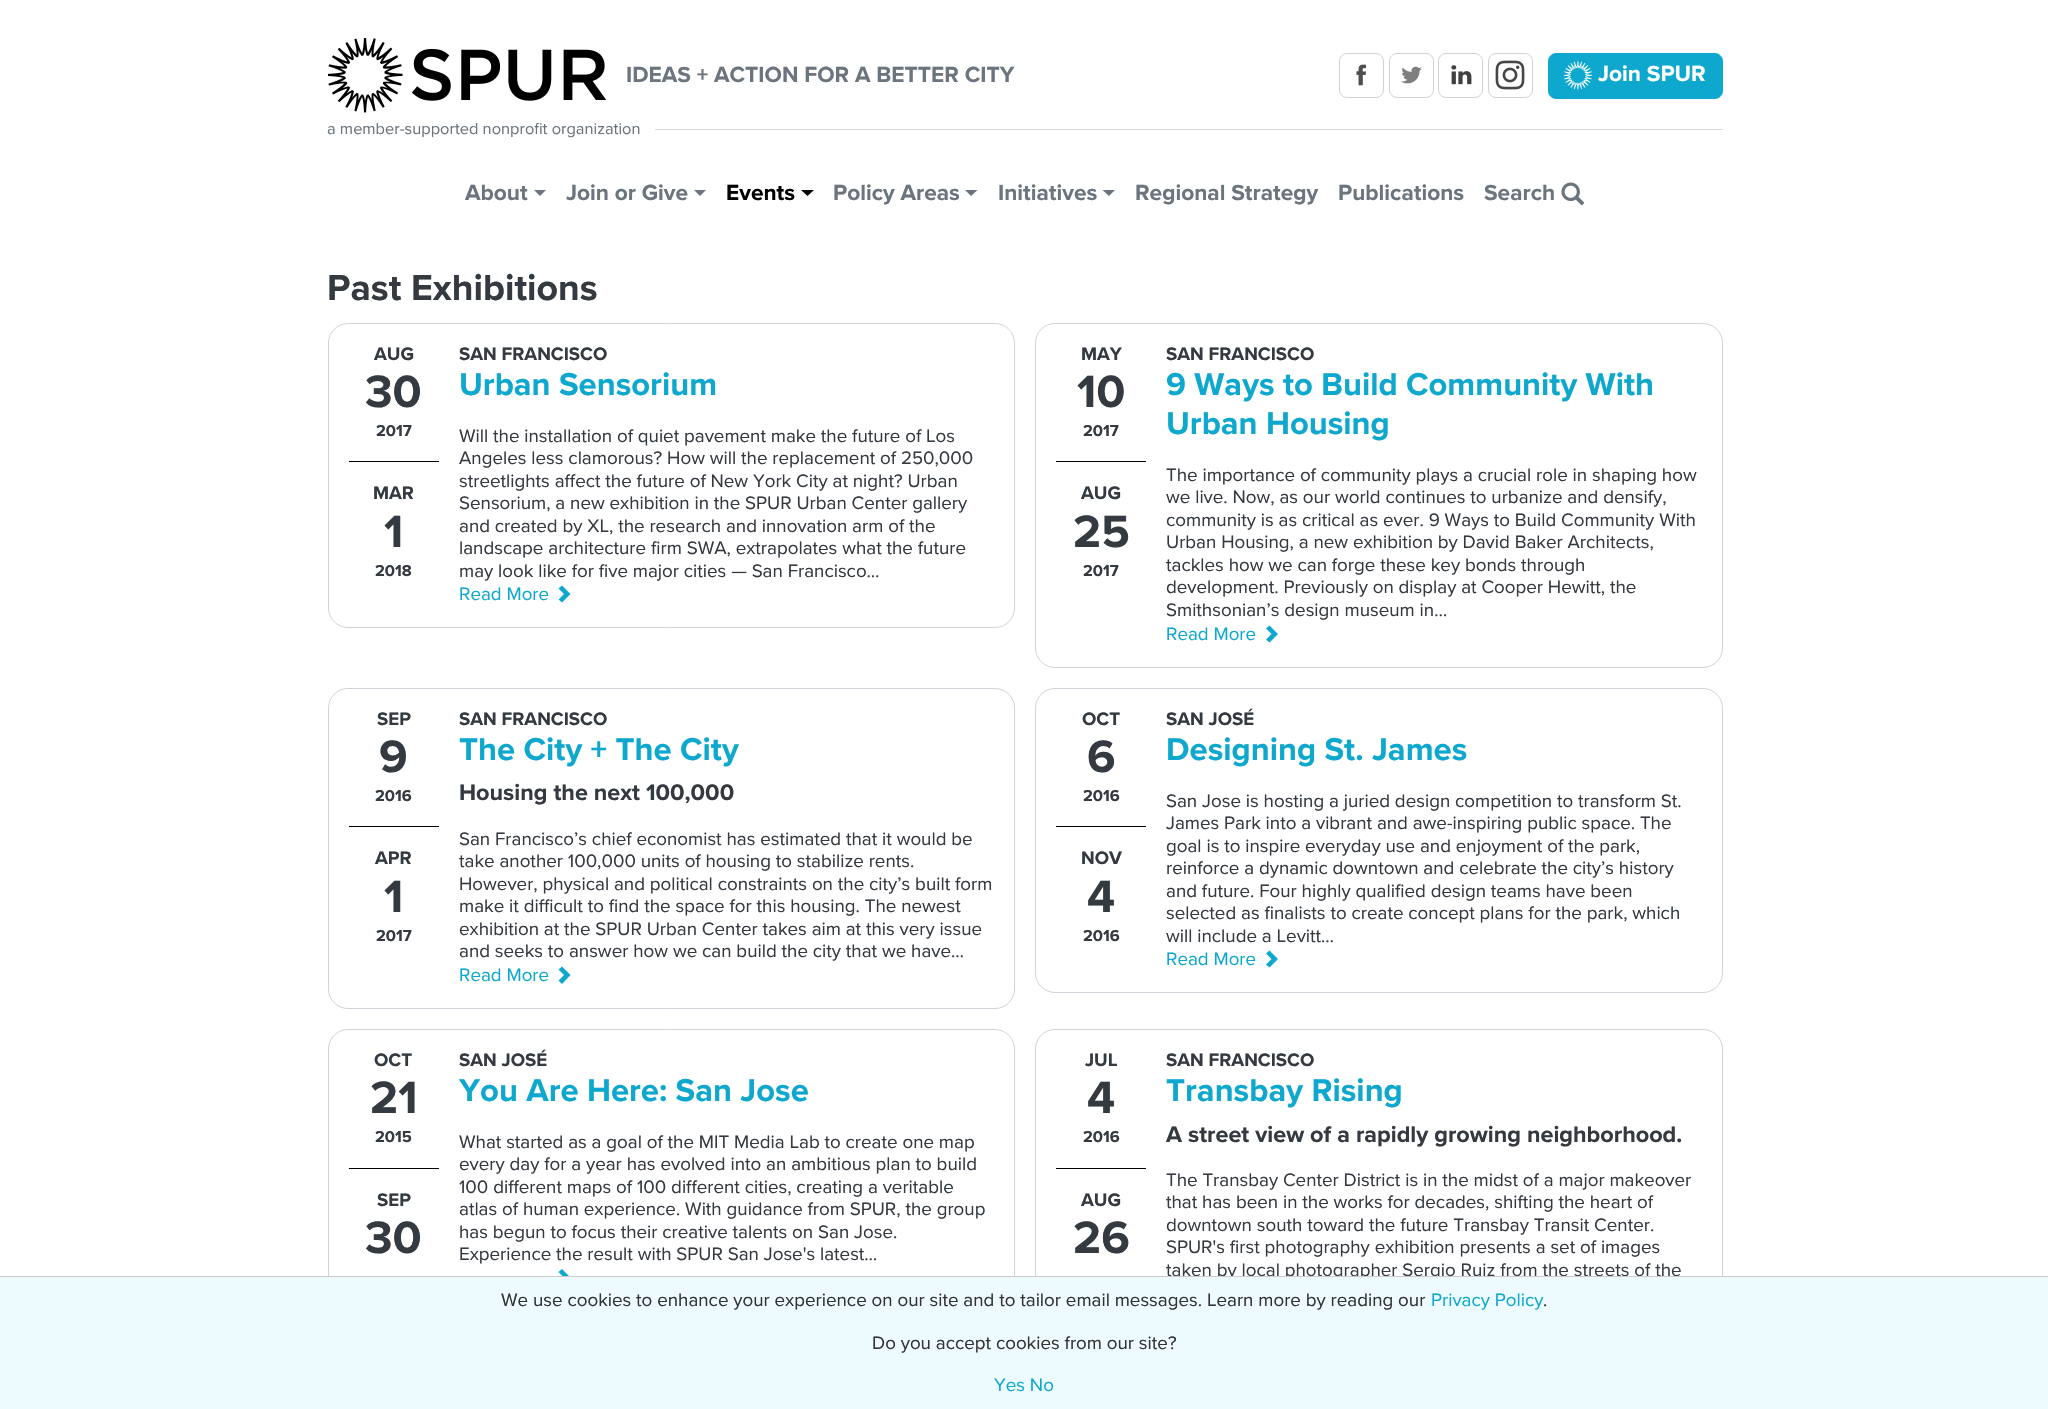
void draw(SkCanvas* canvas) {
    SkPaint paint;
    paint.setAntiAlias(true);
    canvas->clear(0xFFFFFFFF);
    canvas->drawImageRect(SkImages::DeferredFromEncodedData(SkData::MakeFromFileName("img1.png")), SkRect::MakeXYWH(328, 38, 278, 75), SkSamplingOptions());
    SkFont font1(fontMgr->matchFamilyStyle("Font", SkFontStyle::Bold()), 22.7f);
    font1.setSubpixel(true);
    paint.setColor(0xFF6C757D);
    canvas->drawString("IDEAS + ACTION FOR A BETTER CITY", 626, 82, font1, paint);
    paint.setStyle(SkPaint::kStroke_Style);
    paint.setStrokeWidth(1);
    paint.setColor(0xFFCED4DA);
    canvas->drawRoundRect(SkRect::MakeXYWH(1339.5f, 53.5f, 44, 44), 7.5f, 7.5f, paint);
    canvas->drawImageRect(SkImages::DeferredFromEncodedData(SkData::MakeFromFileName("img2.png")), SkRect::MakeXYWH(1356, 64, 10, 22), SkSamplingOptions());
    canvas->drawRoundRect(SkRect::MakeXYWH(1389.5f, 53.5f, 44, 44), 7.5f, 7.5f, paint);
    canvas->drawImageRect(SkImages::DeferredFromEncodedData(SkData::MakeFromFileName("img3.png")), SkRect::MakeXYWH(1401, 66, 21, 18), SkSamplingOptions());
    canvas->drawRoundRect(SkRect::MakeXYWH(1438.5f, 53.5f, 44, 44), 7.5f, 7.5f, paint);
    canvas->drawImageRect(SkImages::DeferredFromEncodedData(SkData::MakeFromFileName("img4.png")), SkRect::MakeXYWH(1451, 65, 21, 20), SkSamplingOptions());
    canvas->drawRoundRect(SkRect::MakeXYWH(1488.5f, 53.5f, 44, 44), 7.5f, 7.5f, paint);
    canvas->drawImageRect(SkImages::DeferredFromEncodedData(SkData::MakeFromFileName("img5.png")), SkRect::MakeXYWH(1495, 60, 30, 30), SkSamplingOptions());
    paint.setStyle(SkPaint::kFill_Style);
    paint.setColor(0xFF0EA8CE);
    canvas->drawRoundRect(SkRect::MakeXYWH(1548.5f, 53.5f, 174, 45), 7.5f, 7.5f, paint);
    paint.setStyle(SkPaint::kStroke_Style);
    canvas->drawRoundRect(SkRect::MakeXYWH(1548.5f, 53.5f, 174, 45), 7.5f, 7.5f, paint);
    canvas->drawImageRect(SkImages::DeferredFromEncodedData(SkData::MakeFromFileName("img6.png")), SkRect::MakeXYWH(1564, 61, 29, 29), SkSamplingOptions());
    paint.setStyle(SkPaint::kFill_Style);
    paint.setColor(0xFFFFFFFF);
    canvas->drawString("Join SPUR", 1598, 81, font1, paint);
    SkFont font2(fontMgr->matchFamilyStyle("Font", SkFontStyle::Normal()), 16.4f);
    font2.setSubpixel(true);
    paint.setColor(0xFF6C757D);
    canvas->drawString("a member-supported nonprofit organization", 327, 134, font2, paint);
    paint.setColor(0xFFDADDDF);
    canvas->drawRect(SkRect::MakeXYWH(655, 129, 1068, 1), paint);
    paint.setColor(0xFF6C757D);
    canvas->drawString("About", 465, 200, font1, paint);
    canvas->drawPath(SkPathBuilder().moveTo(534, 190).lineTo(546, 190).lineTo(540, 196).close().detach(), paint);
    canvas->drawString("Join or Give", 566, 200, font1, paint);
    canvas->drawPath(SkPathBuilder().moveTo(694, 190).lineTo(706, 190).lineTo(700, 196).close().detach(), paint);
    paint.setColor(0xFF000000);
    canvas->drawString("Events", 726, 200, font1, paint);
    canvas->drawPath(SkPathBuilder().moveTo(801, 190).lineTo(814, 190).lineTo(807.5f, 196).close().detach(), paint);
    paint.setColor(0xFF6C757D);
    canvas->drawString("Policy Areas", 833, 200, font1, paint);
    canvas->drawPath(SkPathBuilder().moveTo(965, 190).lineTo(977.5f, 190).lineTo(971, 196).close().detach(), paint);
    canvas->drawString("Initiatives", 998, 200, font1, paint);
    canvas->drawPath(SkPathBuilder().moveTo(1102.5f, 190).lineTo(1115, 190).lineTo(1109, 196).close().detach(), paint);
    canvas->drawString("Regional Strategy", 1135, 200, font1, paint);
    canvas->drawString("Publications", 1338, 200, font1, paint);
    canvas->drawString("Search", 1484, 200, font1, paint);
    canvas->drawImageRect(SkImages::DeferredFromEncodedData(SkData::MakeFromFileName("img7.png")), SkRect::MakeXYWH(1561, 182, 24, 24), SkSamplingOptions());
    SkFont font3(fontMgr->matchFamilyStyle("Font", SkFontStyle::Bold()), 37.5f);
    font3.setSubpixel(true);
    paint.setColor(0xFF343A40);
    canvas->drawString("Past Exhibitions", 327, 300, font3, paint);
    paint.setStyle(SkPaint::kStroke_Style);
    paint.setColor(0xFFCED4DA);
    canvas->drawRoundRect(SkRect::MakeXYWH(328.5f, 323.5f, 686, 304), 19.5f, 19.5f, paint);
    paint.setStyle(SkPaint::kFill_Style);
    paint.setColor(0xFF000000);
    canvas->drawRect(SkRect::MakeXYWH(349, 461, 90, 1), paint);
    SkFont font4(fontMgr->matchFamilyStyle("Font", SkFontStyle::Bold()), 18.75f);
    font4.setSubpixel(true);
    paint.setColor(0xFF343A40);
    canvas->drawString("AUG", 374, 360, font4, paint);
    SkFont font5(fontMgr->matchFamilyStyle("Font", SkFontStyle::Bold()), 47);
    font5.setSubpixel(true);
    canvas->drawString("30", 365, 407, font5, paint);
    SkFont font6(fontMgr->matchFamilyStyle("Font", SkFontStyle::Bold()), 16.4f);
    font6.setSubpixel(true);
    canvas->drawString("2017", 376, 436, font6, paint);
    canvas->drawString("MAR", 373, 499, font4, paint);
    canvas->drawString("1", 384, 547, font5, paint);
    canvas->drawString("2018", 375, 576, font6, paint);
    canvas->drawString("SAN FRANCISCO", 459, 360, font4, paint);
    SkFont font7(fontMgr->matchFamilyStyle("Font", SkFontStyle::Bold()), 32.75f);
    font7.setSubpixel(true);
    paint.setColor(0xFF0EA8CE);
    canvas->drawString("Urban Sensorium", 459, 395, font7, paint);
    SkFont font8(fontMgr->matchFamilyStyle("Font", SkFontStyle::Normal()), 18.75f);
    font8.setSubpixel(true);
    paint.setColor(0xFF343A40);
    canvas->drawString("Will the installation of quiet pavement make the future of Los", 459, 442, font8, paint);
    canvas->drawString("Angeles less clamorous? How will the replacement of 250,000", 459, 464, font8, paint);
    canvas->drawString("streetlights affect the future of New York City at night? Urban", 459, 487, font8, paint);
    canvas->drawString("Sensorium, a new exhibition in the SPUR Urban Center gallery", 459, 509, font8, paint);
    canvas->drawString("and created by XL, the research and innovation arm of the", 459, 532, font8, paint);
    canvas->drawString("landscape architecture firm SWA, extrapolates what the future", 459, 554, font8, paint);
    canvas->drawString("may look like for five major cities — San Francisco…", 459, 577, font8, paint);
    paint.setColor(0xFF0EA8CE);
    canvas->drawString("Read More", 459, 600, font8, paint);
    canvas->drawPath(SkPathBuilder().moveTo(570.5f, 594).lineTo(562, 602.5f).lineTo(558.5f, 599.5f).lineTo(564, 594).lineTo(558.5f, 588.5f).lineTo(562, 585.5f).close().detach(), paint);
    paint.setStyle(SkPaint::kStroke_Style);
    paint.setColor(0xFFCED4DA);
    canvas->drawRoundRect(SkRect::MakeXYWH(1035.5f, 323.5f, 687, 344), 19.5f, 19.5f, paint);
    paint.setStyle(SkPaint::kFill_Style);
    paint.setColor(0xFF000000);
    canvas->drawRect(SkRect::MakeXYWH(1056, 461, 90, 1), paint);
    paint.setColor(0xFF343A40);
    canvas->drawString("MAY", 1081, 360, font4, paint);
    canvas->drawString("10", 1077, 407, font5, paint);
    canvas->drawString("2017", 1083, 436, font6, paint);
    canvas->drawString("AUG", 1081, 499, font4, paint);
    canvas->drawString("25", 1073, 547, font5, paint);
    canvas->drawString("2017", 1083, 576, font6, paint);
    canvas->drawString("SAN FRANCISCO", 1166, 360, font4, paint);
    paint.setColor(0xFF0EA8CE);
    canvas->drawString("9 Ways to Build Community With", 1166, 395, font7, paint);
    canvas->drawString("Urban Housing", 1166, 434, font7, paint);
    paint.setColor(0xFF343A40);
    canvas->drawString("The importance of community plays a crucial role in shaping how", 1166, 481, font8, paint);
    canvas->drawString("we live. Now, as our world continues to urbanize and densify,", 1166, 503, font8, paint);
    canvas->drawString("community is as critical as ever. 9 Ways to Build Community With", 1166, 526, font8, paint);
    canvas->drawString("Urban Housing, a new exhibition by David Baker Architects,", 1166, 548, font8, paint);
    canvas->drawString("tackles how we can forge these key bonds through", 1166, 571, font8, paint);
    canvas->drawString("development. Previously on display at Cooper Hewitt, the", 1166, 593, font8, paint);
    canvas->drawString("Smithsonian’s design museum in…", 1166, 616, font8, paint);
    paint.setColor(0xFF0EA8CE);
    canvas->drawString("Read More", 1166, 640, font8, paint);
    canvas->drawPath(SkPathBuilder().moveTo(1278, 634).lineTo(1269.5f, 642.5f).lineTo(1266, 639.5f).lineTo(1271.5f, 634).lineTo(1266, 628.5f).lineTo(1269.5f, 625.5f).close().detach(), paint);
    paint.setStyle(SkPaint::kStroke_Style);
    paint.setColor(0xFFCED4DA);
    canvas->drawRoundRect(SkRect::MakeXYWH(328.5f, 688.5f, 686, 320), 19.5f, 19.5f, paint);
    paint.setStyle(SkPaint::kFill_Style);
    paint.setColor(0xFF000000);
    canvas->drawRect(SkRect::MakeXYWH(349, 826, 90, 1), paint);
    paint.setColor(0xFF343A40);
    canvas->drawString("SEP", 377, 725, font4, paint);
    canvas->drawString("9", 379, 772, font5, paint);
    canvas->drawString("2016", 375, 801, font6, paint);
    canvas->drawString("APR", 375, 864, font4, paint);
    canvas->drawString("1", 384, 912, font5, paint);
    canvas->drawString("2017", 376, 941, font6, paint);
    canvas->drawString("SAN FRANCISCO", 459, 725, font4, paint);
    paint.setColor(0xFF0EA8CE);
    canvas->drawString("The City + The City", 459, 760, font7, paint);
    SkFont font9(fontMgr->matchFamilyStyle("Font", SkFontStyle::Bold()), 23.4f);
    font9.setSubpixel(true);
    paint.setColor(0xFF343A40);
    canvas->drawString("Housing the next 100,000", 459, 800, font9, paint);
    canvas->drawString("San Francisco’s chief economist has estimated that it would be", 459, 845, font8, paint);
    canvas->drawString("take another 100,000 units of housing to stabilize rents.", 459, 867, font8, paint);
    canvas->drawString("However, physical and political constraints on the city’s built form", 459, 890, font8, paint);
    canvas->drawString("make it difficult to find the space for this housing. The newest", 459, 912, font8, paint);
    canvas->drawString("exhibition at the SPUR Urban Center takes aim at this very issue", 459, 935, font8, paint);
    canvas->drawString("and seeks to answer how we can build the city that we have…", 459, 957, font8, paint);
    paint.setColor(0xFF0EA8CE);
    canvas->drawString("Read More", 459, 981, font8, paint);
    canvas->drawPath(SkPathBuilder().moveTo(570.5f, 975).lineTo(562, 984).lineTo(558.5f, 980.5f).lineTo(564, 975).lineTo(558.5f, 969.5f).lineTo(562, 966.5f).close().detach(), paint);
    paint.setStyle(SkPaint::kStroke_Style);
    paint.setColor(0xFFCED4DA);
    canvas->drawRoundRect(SkRect::MakeXYWH(1035.5f, 688.5f, 687, 304), 19.5f, 19.5f, paint);
    paint.setStyle(SkPaint::kFill_Style);
    paint.setColor(0xFF000000);
    canvas->drawRect(SkRect::MakeXYWH(1056, 826, 90, 1), paint);
    paint.setColor(0xFF343A40);
    canvas->drawString("OCT", 1082, 725, font4, paint);
    canvas->drawString("6", 1087, 772, font5, paint);
    canvas->drawString("2016", 1083, 801, font6, paint);
    canvas->drawString("NOV", 1081, 864, font4, paint);
    canvas->drawString("4", 1087, 912, font5, paint);
    canvas->drawString("2016", 1083, 941, font6, paint);
    canvas->drawString("SAN JOSÉ", 1166, 725, font4, paint);
    paint.setColor(0xFF0EA8CE);
    canvas->drawString("Designing St. James", 1166, 760, font7, paint);
    paint.setColor(0xFF343A40);
    canvas->drawString("San Jose is hosting a juried design competition to transform St.", 1166, 807, font8, paint);
    canvas->drawString("James Park into a vibrant and awe-inspiring public space. The", 1166, 829, font8, paint);
    canvas->drawString("goal is to inspire everyday use and enjoyment of the park,", 1166, 852, font8, paint);
    canvas->drawString("reinforce a dynamic downtown and celebrate the city’s history", 1166, 874, font8, paint);
    canvas->drawString("and future. Four highly qualified design teams have been", 1166, 897, font8, paint);
    canvas->drawString("selected as finalists to create concept plans for the park, which", 1166, 919, font8, paint);
    canvas->drawString("will include a Levitt…", 1166, 942, font8, paint);
    paint.setColor(0xFF0EA8CE);
    canvas->drawString("Read More", 1166, 965, font8, paint);
    canvas->drawPath(SkPathBuilder().moveTo(1278, 959).lineTo(1269.5f, 967.5f).lineTo(1266, 964.5f).lineTo(1271.5f, 959).lineTo(1266, 953.5f).lineTo(1269.5f, 950.5f).close().detach(), paint);
    paint.setStyle(SkPaint::kStroke_Style);
    paint.setColor(0xFFCED4DA);
    canvas->drawRoundRect(SkRect::MakeXYWH(328.5f, 1029.5f, 686, 281), 19.5f, 19.5f, paint);
    paint.setStyle(SkPaint::kFill_Style);
    paint.setColor(0xFF000000);
    canvas->drawRect(SkRect::MakeXYWH(349, 1168, 90, 1), paint);
    paint.setColor(0xFF343A40);
    canvas->drawString("OCT", 374, 1066, font4, paint);
    canvas->drawString("21", 370, 1113, font5, paint);
    canvas->drawString("2015", 375, 1142, font6, paint);
    canvas->drawString("SEP", 377, 1206, font4, paint);
    canvas->drawString("30", 365, 1253, font5, paint);
    canvas->drawString("SAN JOSÉ", 459, 1066, font4, paint);
    paint.setColor(0xFF0EA8CE);
    canvas->drawString("You Are Here: San Jose", 459, 1101, font7, paint);
    paint.setColor(0xFF343A40);
    canvas->drawString("What started as a goal of the MIT Media Lab to create one map", 459, 1148, font8, paint);
    canvas->drawString("every day for a year has evolved into an ambitious plan to build", 459, 1170, font8, paint);
    canvas->drawString("100 different maps of 100 different cities, creating a veritable", 459, 1193, font8, paint);
    canvas->drawString("atlas of human experience. With guidance from SPUR, the group", 459, 1215, font8, paint);
    canvas->drawString("has begun to focus their creative talents on San Jose.", 459, 1238, font8, paint);
    canvas->drawString("Experience the result with SPUR San Jose's latest…", 459, 1260, font8, paint);
    paint.setColor(0xFF0EA8CE);
    canvas->drawPath(SkPathBuilder().moveTo(570.5f, 1277.5f).lineTo(562, 1286.5f).lineTo(558.5f, 1283).lineTo(564, 1277.5f).lineTo(558.5f, 1272).lineTo(562, 1269).close().detach(), paint);
    paint.setStyle(SkPaint::kStroke_Style);
    paint.setColor(0xFFCED4DA);
    canvas->drawRoundRect(SkRect::MakeXYWH(1035.5f, 1029.5f, 687, 343), 19.5f, 19.5f, paint);
    paint.setStyle(SkPaint::kFill_Style);
    paint.setColor(0xFF000000);
    canvas->drawRect(SkRect::MakeXYWH(1056, 1168, 90, 1), paint);
    paint.setColor(0xFF343A40);
    canvas->drawString("JUL", 1085, 1066, font4, paint);
    canvas->drawString("4", 1087, 1113, font5, paint);
    canvas->drawString("2016", 1083, 1142, font6, paint);
    canvas->drawString("AUG", 1081, 1206, font4, paint);
    canvas->drawString("26", 1073, 1253, font5, paint);
    canvas->drawString("SAN FRANCISCO", 1166, 1066, font4, paint);
    paint.setColor(0xFF0EA8CE);
    canvas->drawString("Transbay Rising", 1166, 1101, font7, paint);
    paint.setColor(0xFF343A40);
    canvas->drawString("A street view of a rapidly growing neighborhood.", 1166, 1142, font9, paint);
    canvas->drawString("The Transbay Center District is in the midst of a major makeover", 1166, 1186, font8, paint);
    canvas->drawString("that has been in the works for decades, shifting the heart of", 1166, 1208, font8, paint);
    canvas->drawString("downtown south toward the future Transbay Transit Center.", 1166, 1231, font8, paint);
    canvas->drawString("SPUR's first photography exhibition presents a set of images", 1166, 1253, font8, paint);
    canvas->drawString("taken by local photographer Sergio Ruiz from the streets of the", 1166, 1276, font8, paint);
    paint.setColor(0xFFEDFAFE);
    canvas->drawRect(SkRect::MakeXYWH(0, 1277, 2048, 132), paint);
    paint.setColor(0xFFCCCCCC);
    canvas->drawRect(SkRect::MakeXYWH(0, 1276, 2048, 1), paint);
    paint.setColor(0xFF333333);
    canvas->drawString("We use cookies to enhance your experience on our site and to tailor email messages. Learn more by reading our", 501, 1306, font8, paint);
    paint.setColor(0xFF0EA8CE);
    canvas->drawString("Privacy Policy", 1431, 1306, font8, paint);
    paint.setColor(0xFF333333);
    canvas->drawString(".", 1543, 1306, font8, paint);
    canvas->drawString("Do you accept cookies from our site?", 872, 1349, font8, paint);
    paint.setColor(0xFF0EA8CE);
    canvas->drawString("Yes No", 994, 1391, font8, paint);
}
